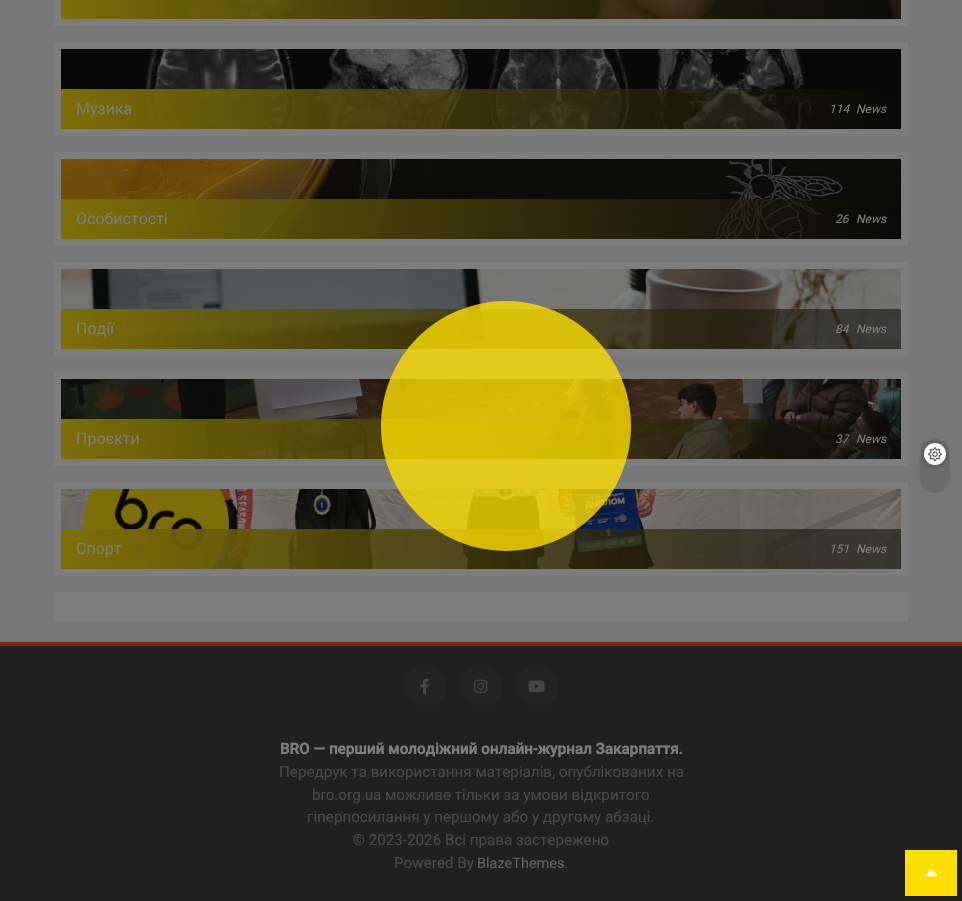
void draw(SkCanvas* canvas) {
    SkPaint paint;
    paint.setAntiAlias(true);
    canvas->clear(0xFF777777);
    paint.setColor(0xFF7D7D7D);
    canvas->drawRect(SkRect::MakeXYWH(54, 0, 854, 26), paint);
    canvas->drawImageRect(SkImages::DeferredFromEncodedData(SkData::MakeFromFileName("img1.png")), SkRect::MakeXYWH(61, 0, 840, 19), SkSamplingOptions());
    canvas->drawRect(SkRect::MakeXYWH(54, 42, 854, 94), paint);
    canvas->drawImageRect(SkImages::DeferredFromEncodedData(SkData::MakeFromFileName("img2.png")), SkRect::MakeXYWH(61, 49, 840, 80), SkSamplingOptions());
    SkFont font1(fontMgr->matchFamilyStyle("Roboto", SkFontStyle::Normal()), 16);
    font1.setSubpixel(true);
    canvas->drawString("Музика", 76, 114, font1, paint);
    SkFont font2(fontMgr->matchFamilyStyle("Roboto", SkFontStyle::Italic()), 12);
    font2.setSubpixel(true);
    canvas->drawString("114", 829, 113, font2, paint);
    canvas->drawString("News", 856, 113, font2, paint);
    canvas->drawRect(SkRect::MakeXYWH(54, 152, 854, 94), paint);
    canvas->drawImageRect(SkImages::DeferredFromEncodedData(SkData::MakeFromFileName("img3.png")), SkRect::MakeXYWH(61, 159, 840, 80), SkSamplingOptions());
    canvas->drawString("Особистості", 76, 224, font1, paint);
    canvas->drawString("26", 835, 223, font2, paint);
    canvas->drawString("News", 856, 223, font2, paint);
    canvas->drawRect(SkRect::MakeXYWH(54, 262, 854, 94), paint);
    canvas->drawImageRect(SkImages::DeferredFromEncodedData(SkData::MakeFromFileName("img4.png")), SkRect::MakeXYWH(61, 269, 840, 80), SkSamplingOptions());
    canvas->drawString("Події", 76, 334, font1, paint);
    canvas->drawString("84", 835, 333, font2, paint);
    canvas->drawString("News", 856, 333, font2, paint);
    canvas->drawRect(SkRect::MakeXYWH(54, 372, 854, 94), paint);
    canvas->drawImageRect(SkImages::DeferredFromEncodedData(SkData::MakeFromFileName("img5.png")), SkRect::MakeXYWH(61, 379, 840, 80), SkSamplingOptions());
    canvas->drawString("Проєкти", 76, 444, font1, paint);
    canvas->drawString("37", 835, 443, font2, paint);
    canvas->drawString("News", 856, 443, font2, paint);
    canvas->drawRect(SkRect::MakeXYWH(54, 482, 854, 94), paint);
    canvas->drawImageRect(SkImages::DeferredFromEncodedData(SkData::MakeFromFileName("img6.png")), SkRect::MakeXYWH(61, 489, 840, 80), SkSamplingOptions());
    canvas->drawString("Спорт", 76, 554, font1, paint);
    canvas->drawString("151", 829, 553, font2, paint);
    canvas->drawString("News", 856, 553, font2, paint);
    canvas->drawRect(SkRect::MakeXYWH(54, 592, 854, 30), paint);
    paint.setColor(0x8AFFDF00);
    canvas->drawCircle(506, 426, 125, paint);
    canvas->drawCircle(506, 426, 125, paint);
    paint.setColor(0xFF6B6B6B);
    canvas->drawPath(SkPathBuilder().moveTo(950, 454).lineTo(950, 478).cubicTo(949, 494, 927, 499, 921, 484).cubicTo(919, 478, 919, 460, 920, 454).cubicTo(920, 433, 950, 434, 950, 454).close().detach(), paint);
    paint.setColor(0x59000000);
    paint.setMaskFilter(SkMaskFilter::MakeBlur(kNormal_SkBlurStyle, 2.5f));
    canvas->drawRoundRect(SkRect::MakeXYWH(924, 443, 22, 22), 11, 11, paint);
    paint.setMaskFilter(nullptr);
    paint.setColor(0xFFFFFFFF);
    canvas->drawCircle(935, 454, 11, paint);
    canvas->drawImageRect(SkImages::DeferredFromEncodedData(SkData::MakeFromFileName("img7.png")), SkRect::MakeXYWH(928, 447, 14, 15), SkSamplingOptions());
    paint.setColor(0xFF7C2C13);
    canvas->drawRect(SkRect::MakeXYWH(0, 642, 962, 4), paint);
    paint.setColor(0xFF202020);
    canvas->drawRect(SkRect::MakeXYWH(0, 646, 962, 255), paint);
    paint.setColor(0xFF232323);
    canvas->drawCircle(425, 687, 21, paint);
    canvas->drawImageRect(SkImages::DeferredFromEncodedData(SkData::MakeFromFileName("img8.png")), SkRect::MakeXYWH(420, 678, 9, 16), SkSamplingOptions());
    canvas->drawCircle(481, 687, 21, paint);
    canvas->drawImageRect(SkImages::DeferredFromEncodedData(SkData::MakeFromFileName("img9.png")), SkRect::MakeXYWH(474, 679, 14, 14), SkSamplingOptions());
    canvas->drawCircle(537, 687, 21, paint);
    canvas->drawImageRect(SkImages::DeferredFromEncodedData(SkData::MakeFromFileName("img10.png")), SkRect::MakeXYWH(528, 680, 17, 12), SkSamplingOptions());
    SkFont font3(fontMgr->matchFamilyStyle("Roboto", SkFontStyle::Bold()), 15.2f);
    font3.setSubpixel(true);
    paint.setColor(0xFF7D7D7D);
    canvas->drawString("BRO — перший молодіжний онлайн-журнал Закарпаття.", 280, 754, font3, paint);
    SkFont font4(fontMgr->matchFamilyStyle("Roboto", SkFontStyle::Normal()), 15.2f);
    font4.setSubpixel(true);
    paint.setColor(0xFF484849);
    canvas->drawString("Передрук та використання матеріалів, опублікованих на", 279, 777, font4, paint);
    canvas->drawString("bro.org.ua можливе тільки за умови відкритого", 312, 800, font4, paint);
    canvas->drawString("гіперпосилання у першому або у другому абзаці.", 307, 822, font4, paint);
    canvas->drawString("© 2023-2026 Всі права застережено", 353, 845, font4, paint);
    canvas->drawString("Powered By", 394, 868, font4, paint);
    SkFont font5(fontMgr->matchFamilyStyle("Roboto", SkFontStyle::Normal()), 14.5f);
    font5.setSubpixel(true);
    paint.setColor(0xFF636363);
    canvas->drawString("BlazeThemes", 477, 868, font5, paint);
    paint.setColor(0xFF484849);
    canvas->drawString(".", 564, 868, font4, paint);
    paint.setColor(0xFFFFDF00);
    canvas->drawRect(SkRect::MakeXYWH(905, 850, 52, 46), paint);
    canvas->drawImageRect(SkImages::DeferredFromEncodedData(SkData::MakeFromFileName("img11.png")), SkRect::MakeXYWH(925, 869, 12, 8), SkSamplingOptions());
}
